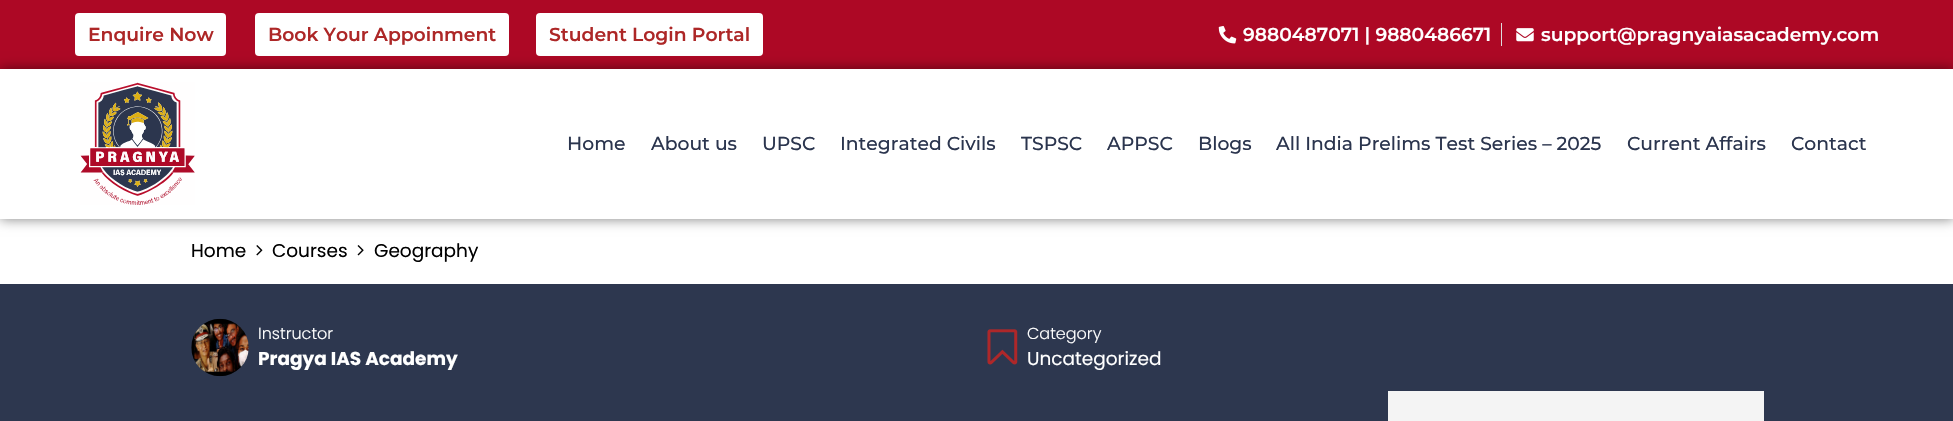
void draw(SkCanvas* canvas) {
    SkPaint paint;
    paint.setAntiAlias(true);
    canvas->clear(0xFFFFFFFF);
    paint.setColor(0xFFAD0825);
    canvas->drawRect(SkRect::MakeXYWH(0, 0, 1953, 69), paint);
    paint.setColor(0xFFFFFFFF);
    canvas->drawRoundRect(SkRect::MakeXYWH(75, 13, 151, 43), 4, 4, paint);
    SkFont font1(fontMgr->matchFamilyStyle("Montserrat", SkFontStyle(600, SkFontStyle::kNormal_Width, SkFontStyle::kUpright_Slant)), 18.75f);
    font1.setSubpixel(true);
    paint.setColor(0xFFAD2727);
    canvas->drawString("Enquire Now", 88, 41, font1, paint);
    paint.setColor(0xFFFFFFFF);
    canvas->drawRoundRect(SkRect::MakeXYWH(255, 13, 254, 43), 4, 4, paint);
    paint.setColor(0xFFAD2727);
    canvas->drawString("Book Your Appoinment", 268, 41, font1, paint);
    paint.setColor(0xFFFFFFFF);
    canvas->drawRoundRect(SkRect::MakeXYWH(536, 13, 227, 43), 4, 4, paint);
    paint.setColor(0xFFAD2727);
    canvas->drawString("Student Login Portal", 549, 41, font1, paint);
    canvas->drawImageRect(SkImages::DeferredFromEncodedData(SkData::MakeFromFileName("img1.png")), SkRect::MakeXYWH(1218, 26, 19, 18), SkSamplingOptions());
    paint.setColor(0xFFFFFFFF);
    canvas->drawString("9880487071 | 9880486671", 1243, 41, font1, paint);
    paint.setColor(0xFFDDDDDD);
    canvas->drawRect(SkRect::MakeXYWH(1501, 23, 1, 23), paint);
    canvas->drawImageRect(SkImages::DeferredFromEncodedData(SkData::MakeFromFileName("img2.png")), SkRect::MakeXYWH(1516, 28, 18, 14), SkSamplingOptions());
    paint.setColor(0xFFFFFFFF);
    canvas->drawString("support@pragnyaiasacademy.com", 1541, 41, font1, paint);
    canvas->save();
    canvas->clipPath(SkPathBuilder(SkPathFillType::kEvenOdd).moveTo(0, 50).lineTo(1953, 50).lineTo(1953, 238).lineTo(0, 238).close().moveTo(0, 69).lineTo(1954, 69).lineTo(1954, 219).lineTo(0, 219).close().detach(), true);
    paint.setColor(0x80000000);
    paint.setMaskFilter(SkMaskFilter::MakeBlur(kNormal_SkBlurStyle, 6));
    canvas->drawRect(SkRect::MakeXYWH(0, 69, 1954, 150), paint);
    paint.setMaskFilter(nullptr);
    canvas->restore();
    canvas->drawImageRect(SkImages::DeferredFromEncodedData(SkData::MakeFromFileName("img3.png")), SkRect::MakeXYWH(80, 82, 115, 123), SkSamplingOptions());
    SkFont font2(fontMgr->matchFamilyStyle("Montserrat", SkFontStyle(500, SkFontStyle::kNormal_Width, SkFontStyle::kUpright_Slant)), 18.75f);
    font2.setSubpixel(true);
    paint.setColor(0xFF2B354E);
    canvas->drawString("Home", 567, 150, font2, paint);
    canvas->drawString("About us", 651, 150, font2, paint);
    canvas->drawString("UPSC", 762, 150, font2, paint);
    canvas->drawString("Integrated Civils", 840, 150, font2, paint);
    canvas->drawString("TSPSC", 1021, 150, font2, paint);
    canvas->drawString("APPSC", 1107, 150, font2, paint);
    canvas->drawString("Blogs", 1198, 150, font2, paint);
    canvas->drawString("All India Prelims Test Series – 2025", 1276, 150, font2, paint);
    canvas->drawString("Current Affairs", 1627, 150, font2, paint);
    canvas->drawString("Contact", 1791, 150, font2, paint);
    SkFont font3(fontMgr->matchFamilyStyle("Poppins", SkFontStyle::Normal()), 18.5f);
    font3.setSubpixel(true);
    paint.setColor(0xFF000000);
    canvas->drawString("Home", 191, 257, font3, paint);
    canvas->drawImageRect(SkImages::DeferredFromEncodedData(SkData::MakeFromFileName("img4.png")), SkRect::MakeXYWH(256, 245, 7, 11), SkSamplingOptions());
    canvas->drawString("Courses", 272, 257, font3, paint);
    canvas->drawImageRect(SkImages::DeferredFromEncodedData(SkData::MakeFromFileName("img5.png")), SkRect::MakeXYWH(357, 245, 7, 11), SkSamplingOptions());
    canvas->drawString("Geography", 374, 257, font3, paint);
    paint.setColor(0xFF2D374F);
    canvas->drawRect(SkRect::MakeXYWH(0, 284, 1953, 137), paint);
    canvas->drawImageRect(SkImages::DeferredFromEncodedData(SkData::MakeFromFileName("img6.png")), SkRect::MakeXYWH(191, 318, 58, 59), SkSamplingOptions());
    SkFont font4(fontMgr->matchFamilyStyle("Poppins", SkFontStyle(300, SkFontStyle::kNormal_Width, SkFontStyle::kUpright_Slant)), 16);
    font4.setSubpixel(true);
    paint.setColor(0xFFFFFFFF);
    canvas->drawString("Instructor", 258, 339, font4, paint);
    SkFont font5(fontMgr->matchFamilyStyle("Poppins", SkFontStyle::Bold()), 18.5f);
    font5.setSubpixel(true);
    canvas->drawString("Pragya IAS Academy", 258, 365, font5, paint);
    canvas->drawImageRect(SkImages::DeferredFromEncodedData(SkData::MakeFromFileName("img7.png")), SkRect::MakeXYWH(987, 329, 31, 36), SkSamplingOptions());
    canvas->drawString("Category", 1027, 339, font4, paint);
    canvas->drawString("Uncategorized", 1027, 365, font3, paint);
    paint.setColor(0xFFF4F4F4);
    canvas->drawRect(SkRect::MakeXYWH(1388, 391, 376, 30), paint);
}
